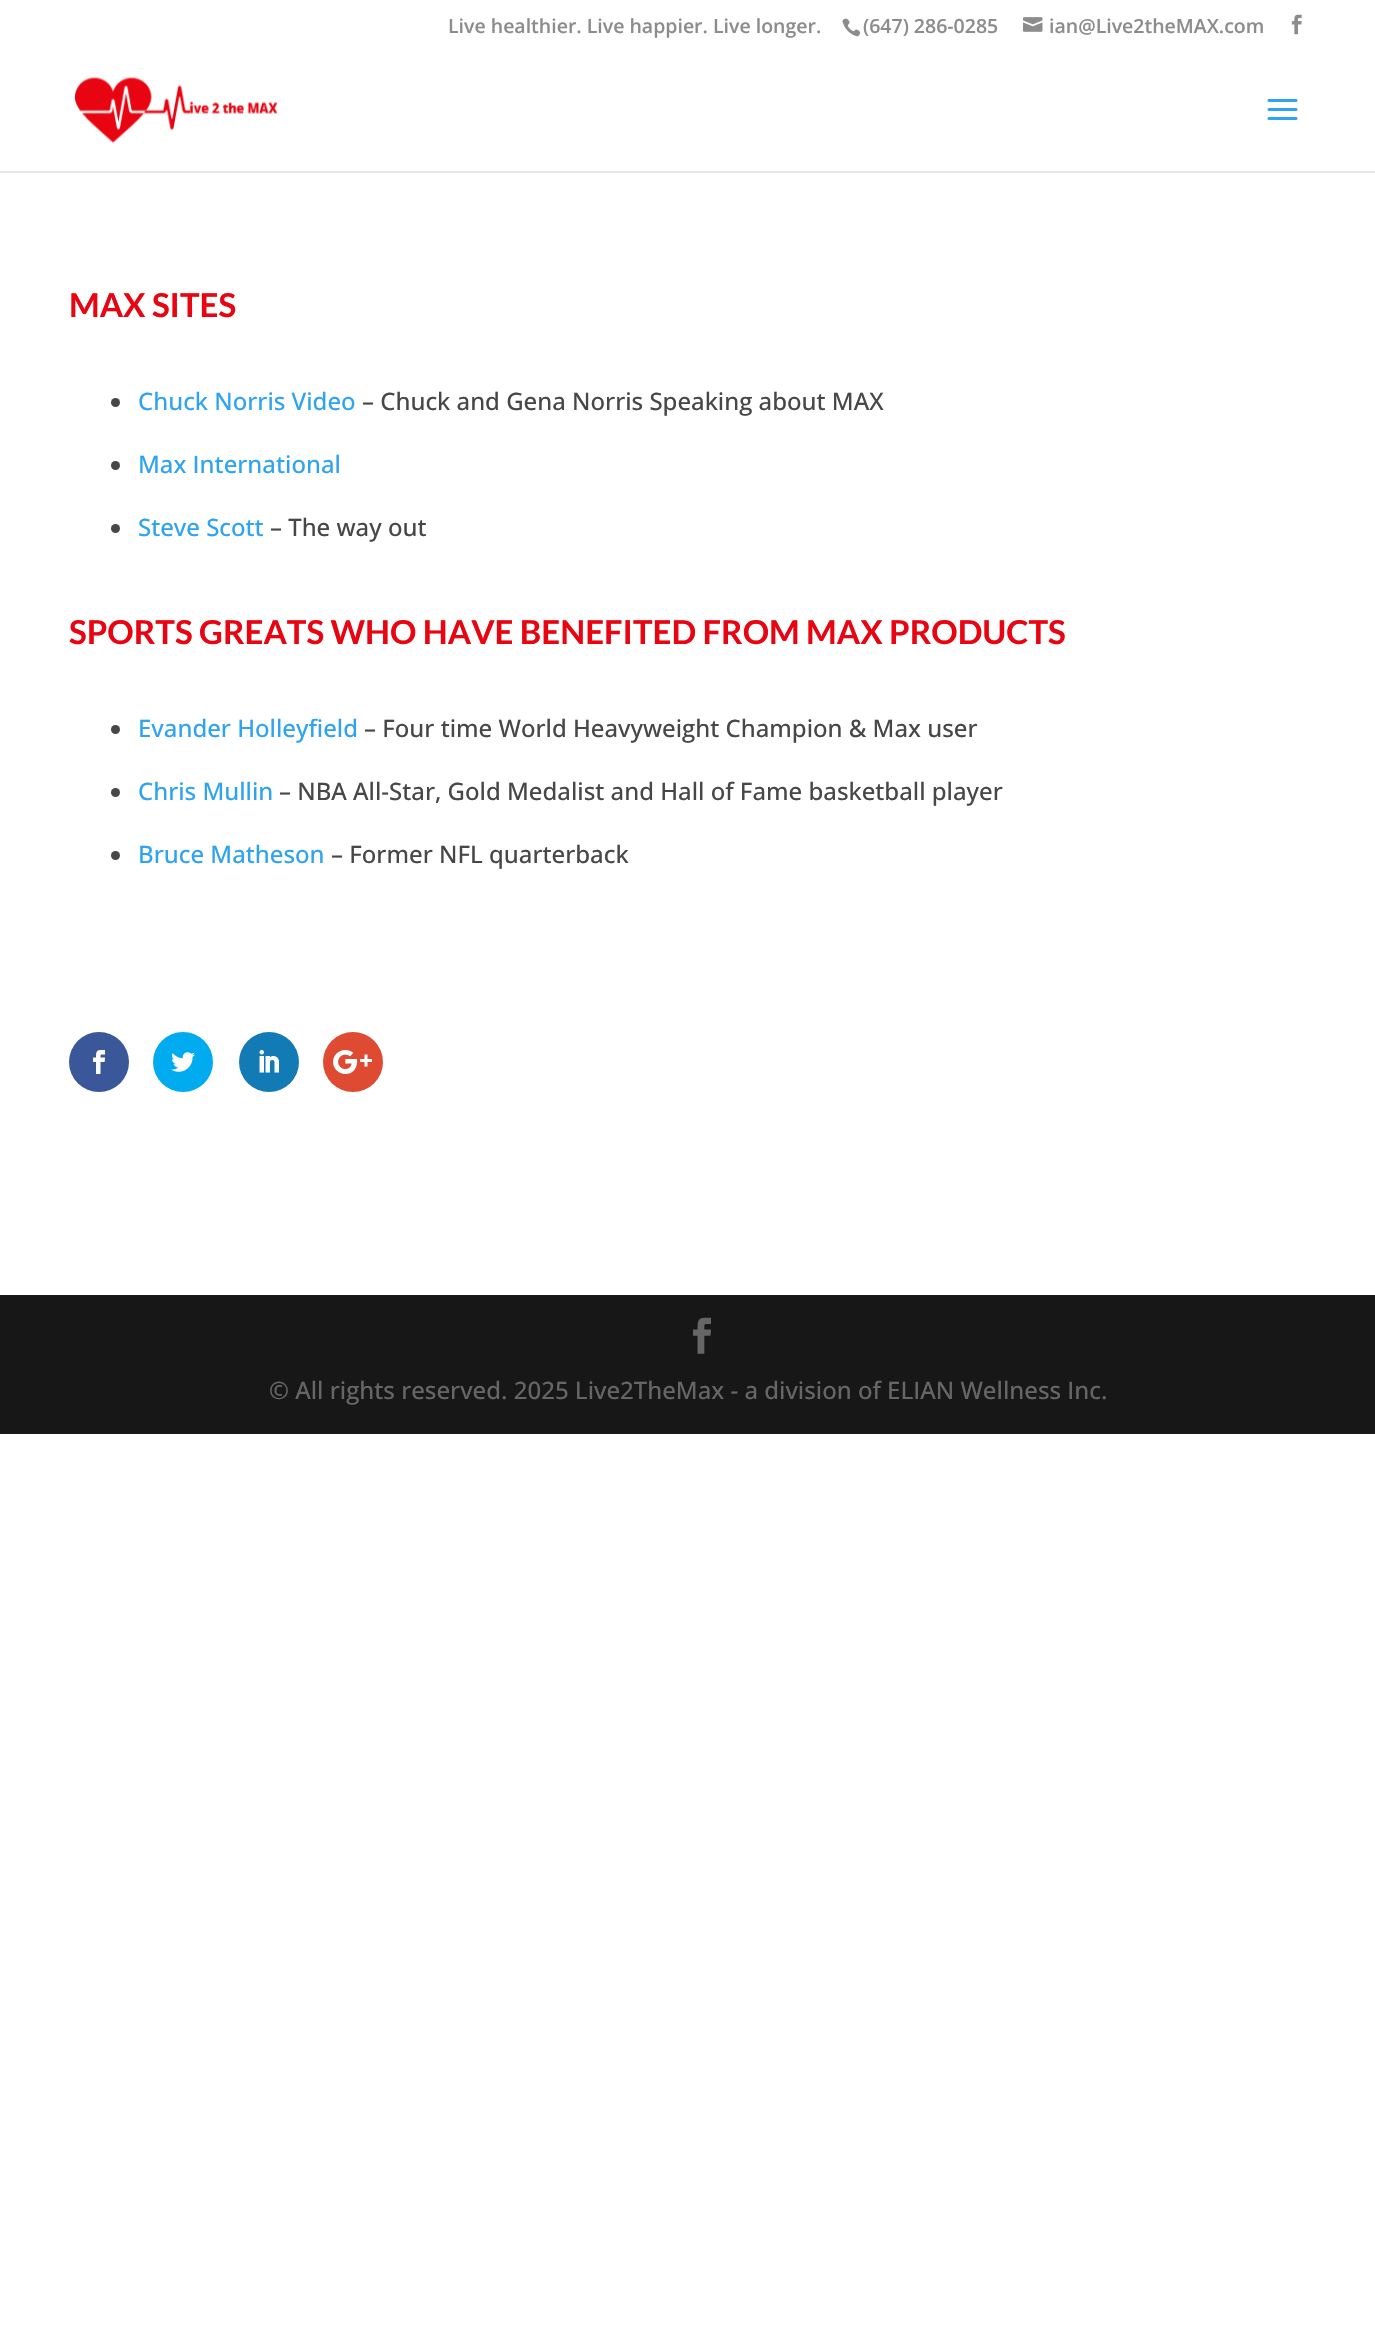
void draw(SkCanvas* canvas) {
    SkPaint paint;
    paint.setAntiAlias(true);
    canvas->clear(0xFFFFFFFF);
    SkFont font1(fontMgr->matchFamilyStyle("Open Sans", SkFontStyle(600, SkFontStyle::kNormal_Width, SkFontStyle::kUpright_Slant)), 19.5f);
    font1.setSubpixel(true);
    paint.setColor(0xFF8C8C8C);
    canvas->drawString("Live healthier. Live happier. Live longer.", 448, 33, font1, paint);
    canvas->drawImageRect(SkImages::DeferredFromEncodedData(SkData::MakeFromFileName("img1.png")), SkRect::MakeXYWH(842, 18, 19, 19), SkSamplingOptions());
    canvas->drawString("(647) 286-0285", 863, 33, font1, paint);
    canvas->drawImageRect(SkImages::DeferredFromEncodedData(SkData::MakeFromFileName("img2.png")), SkRect::MakeXYWH(1023, 17, 20, 15), SkSamplingOptions());
    canvas->drawString("ian@Live2theMAX.com", 1049, 33, font1, paint);
    canvas->drawImageRect(SkImages::DeferredFromEncodedData(SkData::MakeFromFileName("img3.png")), SkRect::MakeXYWH(1291, 14, 11, 21), SkSamplingOptions());
    paint.setColor(0xFFE6E6E6);
    canvas->drawPath(SkPathBuilder().moveTo(0, 171).lineTo(0, 173).lineTo(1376, 173).lineTo(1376, 53).lineTo(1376, 171).close().detach(), paint);
    canvas->drawImageRect(SkImages::DeferredFromEncodedData(SkData::MakeFromFileName("img4.png")), SkRect::MakeXYWH(75, 77, 203, 66), SkSamplingOptions());
    canvas->drawImageRect(SkImages::DeferredFromEncodedData(SkData::MakeFromFileName("img5.png")), SkRect::MakeXYWH(1267, 99, 31, 21), SkSamplingOptions());
    SkFont font2(fontMgr->matchFamilyStyle("Lato", SkFontStyle::Bold()), 33);
    font2.setSubpixel(true);
    paint.setColor(0xFFE80511);
    canvas->drawString("MAX SITES", 69, 317, font2, paint);
    paint.setColor(0xFF474747);
    canvas->drawCircle(115.5f, 402.5f, 4.5f, paint);
    SkFont font3(fontMgr->matchFamilyStyle("Open Sans", SkFontStyle(500, SkFontStyle::kNormal_Width, SkFontStyle::kUpright_Slant)), 24);
    font3.setSubpixel(true);
    paint.setColor(0xFF2EA3F2);
    canvas->drawString("Chuck Norris Video", 138, 410, font3, paint);
    paint.setColor(0xFF474747);
    canvas->drawString("– Chuck and Gena Norris Speaking about MAX", 362, 410, font3, paint);
    canvas->drawCircle(115.5f, 465.5f, 4.5f, paint);
    paint.setColor(0xFF2EA3F2);
    canvas->drawString("Max International", 138, 473, font3, paint);
    paint.setColor(0xFF474747);
    canvas->drawCircle(115.5f, 528.5f, 4.5f, paint);
    paint.setColor(0xFF2EA3F2);
    canvas->drawString("Steve Scott", 138, 536, font3, paint);
    paint.setColor(0xFF474747);
    canvas->drawString("– The way out", 270, 536, font3, paint);
    paint.setColor(0xFFE80511);
    canvas->drawString("SPORTS GREATS WHO HAVE BENEFITED FROM MAX PRODUCTS", 69, 644, font2, paint);
    paint.setColor(0xFF474747);
    canvas->drawCircle(115.5f, 729.5f, 4.5f, paint);
    paint.setColor(0xFF2EA3F2);
    canvas->drawString("Evander Holleyfield", 138, 737, font3, paint);
    paint.setColor(0xFF474747);
    canvas->drawString("– Four time World Heavyweight Champion & Max user", 364, 737, font3, paint);
    canvas->drawCircle(115.5f, 792.5f, 4.5f, paint);
    paint.setColor(0xFF2EA3F2);
    canvas->drawString("Chris Mullin", 138, 800, font3, paint);
    paint.setColor(0xFF474747);
    canvas->drawString("– NBA All-Star, Gold Medalist and Hall of Fame basketball player", 279, 800, font3, paint);
    canvas->drawCircle(115.5f, 855.5f, 4.5f, paint);
    paint.setColor(0xFF2EA3F2);
    canvas->drawString("Bruce Matheson", 138, 863, font3, paint);
    paint.setColor(0xFF474747);
    canvas->drawString("– Former NFL quarterback", 331, 863, font3, paint);
    paint.setColor(0xFF3A579A);
    canvas->drawCircle(99, 1062, 30, paint);
    canvas->drawImageRect(SkImages::DeferredFromEncodedData(SkData::MakeFromFileName("img6.png")), SkRect::MakeXYWH(93, 1050, 12, 24), SkSamplingOptions());
    paint.setColor(0xFF00ABF0);
    canvas->drawCircle(183, 1062, 30, paint);
    canvas->drawImageRect(SkImages::DeferredFromEncodedData(SkData::MakeFromFileName("img7.png")), SkRect::MakeXYWH(171, 1052, 24, 20), SkSamplingOptions());
    paint.setColor(0xFF127BB6);
    canvas->drawCircle(269, 1062, 30, paint);
    canvas->drawImageRect(SkImages::DeferredFromEncodedData(SkData::MakeFromFileName("img8.png")), SkRect::MakeXYWH(259, 1050, 20, 23), SkSamplingOptions());
    paint.setColor(0xFFDF4A32);
    canvas->drawCircle(353, 1062, 30, paint);
    canvas->drawImageRect(SkImages::DeferredFromEncodedData(SkData::MakeFromFileName("img9.png")), SkRect::MakeXYWH(333, 1050, 39, 24), SkSamplingOptions());
    paint.setColor(0xFF171717);
    canvas->drawRect(SkRect::MakeXYWH(0, 1295, 1375, 139), paint);
    canvas->drawImageRect(SkImages::DeferredFromEncodedData(SkData::MakeFromFileName("img10.png")), SkRect::MakeXYWH(693, 1317, 18, 37), SkSamplingOptions());
    paint.setColor(0xFF666666);
    canvas->drawString("© All rights reserved. 2025 Live2TheMax - a division of ELIAN Wellness Inc.", 269, 1399, font3, paint);
}
